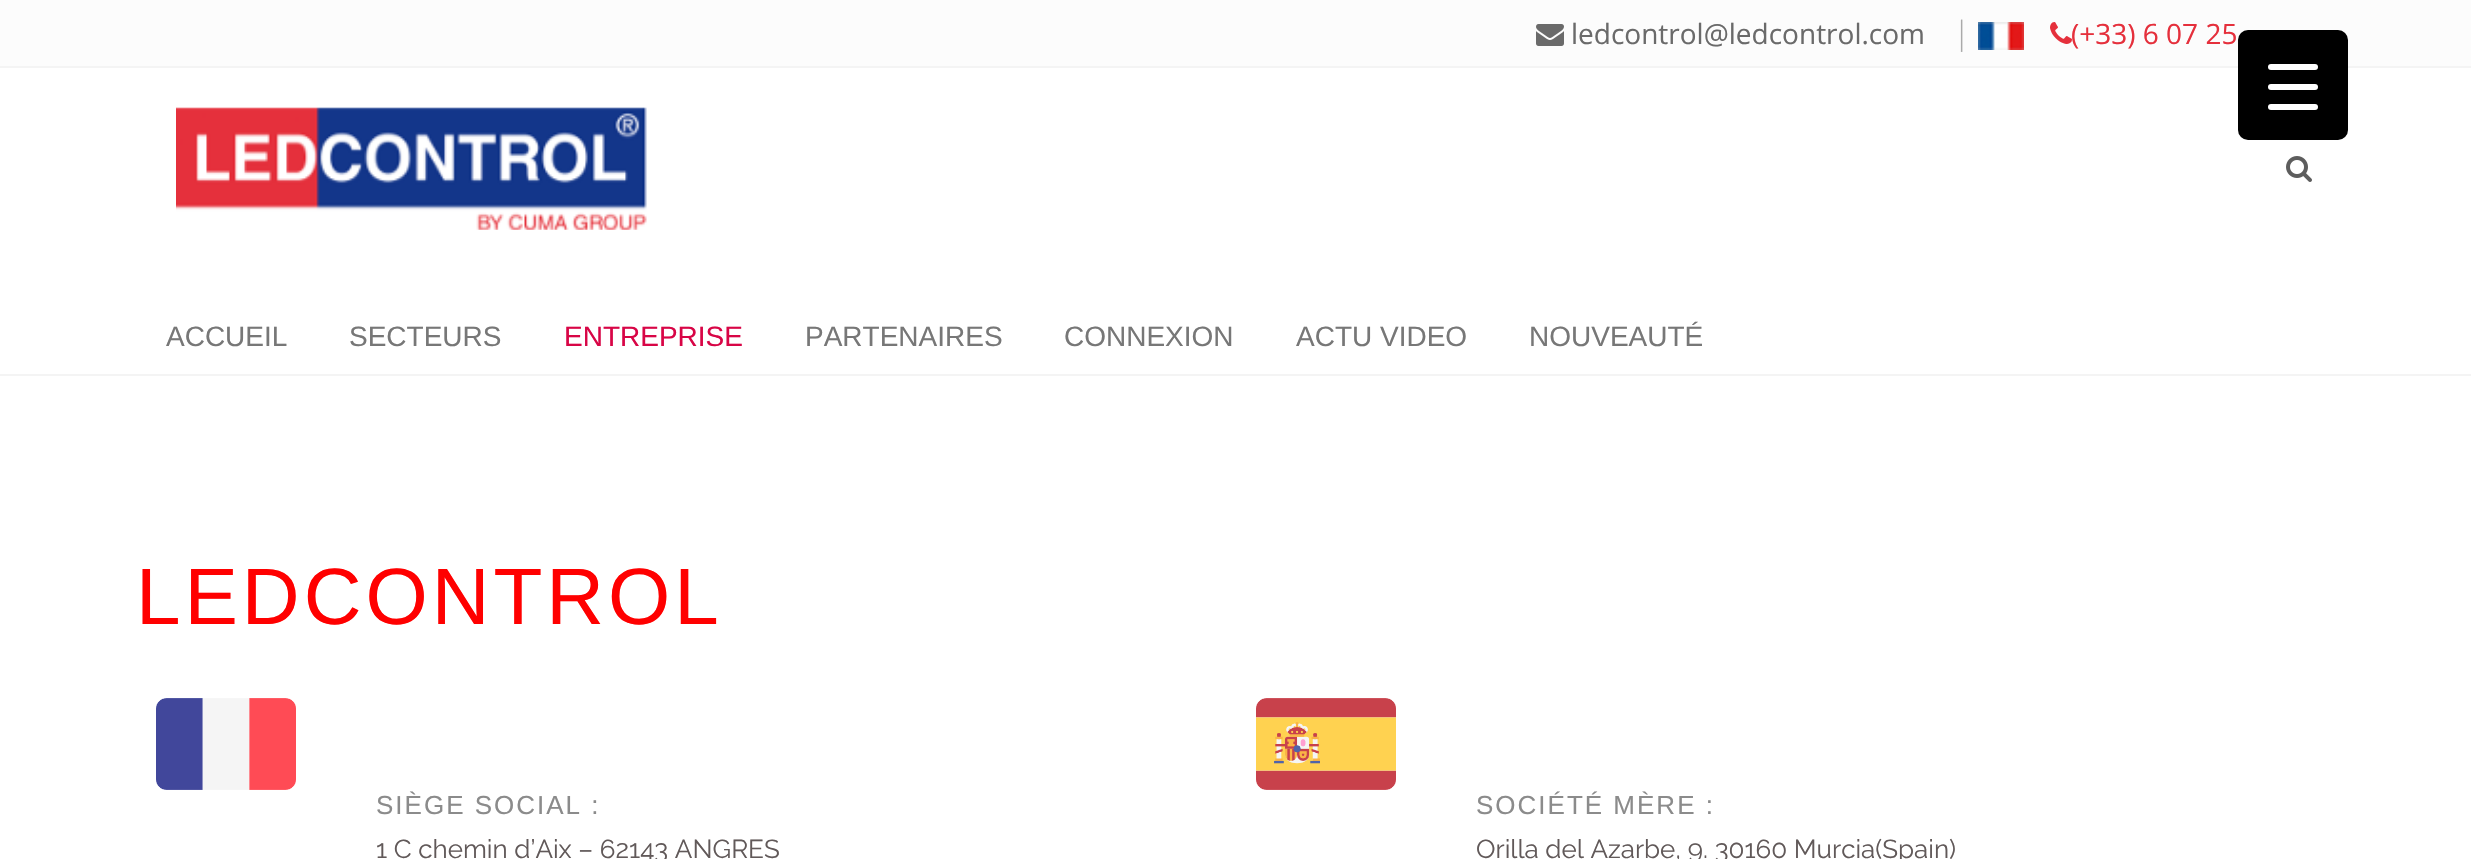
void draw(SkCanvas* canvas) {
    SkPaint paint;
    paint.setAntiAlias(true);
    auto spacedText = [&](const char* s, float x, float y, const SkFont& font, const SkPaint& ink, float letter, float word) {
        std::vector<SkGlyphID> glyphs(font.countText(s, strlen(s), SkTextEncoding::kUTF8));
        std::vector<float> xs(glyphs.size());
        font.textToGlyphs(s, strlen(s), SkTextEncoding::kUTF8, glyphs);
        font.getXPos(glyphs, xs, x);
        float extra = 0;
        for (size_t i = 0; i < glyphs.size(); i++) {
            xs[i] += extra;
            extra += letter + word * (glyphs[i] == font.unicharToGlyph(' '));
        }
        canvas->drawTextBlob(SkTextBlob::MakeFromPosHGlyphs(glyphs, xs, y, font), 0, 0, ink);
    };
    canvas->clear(0xFFFFFFFF);
    paint.setColor(0xFFFCFCFC);
    canvas->drawRect(SkRect::MakeXYWH(0, 0, 2471, 66), paint);
    paint.setColor(0xFFF4F4F4);
    canvas->drawRect(SkRect::MakeXYWH(0, 66, 2471, 2), paint);
    canvas->drawImageRect(SkImages::DeferredFromEncodedData(SkData::MakeFromFileName("img1.png")), SkRect::MakeXYWH(1536, 24, 28, 22), SkSamplingOptions());
    SkFont font1(fontMgr->matchFamilyStyle("Open Sans", SkFontStyle::Normal()), 28);
    font1.setSubpixel(true);
    paint.setColor(0xFF6A6A6A);
    canvas->drawString("ledcontrol@ledcontrol.com", 1571, 44, font1, paint);
    SkFont font2(fontMgr->matchFamilyStyle("Open Sans", SkFontStyle(300, SkFontStyle::kNormal_Width, SkFontStyle::kUpright_Slant)), 32);
    font2.setSubpixel(true);
    paint.setColor(0xFFAAAAAA);
    canvas->drawString("|", 1953, 44, font2, paint);
    canvas->drawImageRect(SkImages::DeferredFromEncodedData(SkData::MakeFromFileName("img2.png")), SkRect::MakeXYWH(1978, 22, 46, 28), SkSamplingOptions());
    canvas->drawImageRect(SkImages::DeferredFromEncodedData(SkData::MakeFromFileName("img3.png")), SkRect::MakeXYWH(2050, 22, 22, 22), SkSamplingOptions());
    paint.setColor(0xFFE5303C);
    canvas->drawString("(+33) 6 07 25", 2071, 44, font1, paint);
    paint.setColor(0xFFF4F4F4);
    canvas->drawRect(SkRect::MakeXYWH(0, 374, 2471, 2), paint);
    canvas->drawImageRect(SkImages::DeferredFromEncodedData(SkData::MakeFromFileName("img4.png")), SkRect::MakeXYWH(176, 107, 471, 123), SkSamplingOptions());
    canvas->drawImageRect(SkImages::DeferredFromEncodedData(SkData::MakeFromFileName("img5.png")), SkRect::MakeXYWH(2286, 156, 26, 26), SkSamplingOptions());
    SkFont font3(fontMgr->matchFamilyStyle("Liberation Sans", SkFontStyle::Normal()), 28);
    font3.setSubpixel(true);
    paint.setColor(0xFF777777);
    canvas->drawString("ACCUEIL", 166, 346, font3, paint);
    canvas->drawString("SECTEURS", 349, 346, font3, paint);
    paint.setColor(0xFFD80546);
    canvas->drawString("ENTREPRISE", 564, 346, font3, paint);
    paint.setColor(0xFF777777);
    canvas->drawString("PARTENAIRES", 805, 346, font3, paint);
    canvas->drawString("CONNEXION", 1064, 346, font3, paint);
    canvas->drawString("ACTU VIDEO", 1296, 346, font3, paint);
    canvas->drawString("NOUVEAUTÉ", 1529, 346, font3, paint);
    SkFont font4(fontMgr->matchFamilyStyle("Liberation Sans", SkFontStyle::Normal()), 80);
    font4.setSubpixel(true);
    paint.setColor(0xFFFF0000);
    spacedText("LEDCONTROL", 136, 624, font4, paint, 4, 0);
    canvas->drawImageRect(SkImages::DeferredFromEncodedData(SkData::MakeFromFileName("img6.png")), SkRect::MakeXYWH(156, 698, 140, 92), SkSamplingOptions());
    canvas->drawImageRect(SkImages::DeferredFromEncodedData(SkData::MakeFromFileName("img7.png")), SkRect::MakeXYWH(1256, 698, 140, 92), SkSamplingOptions());
    SkFont font5(fontMgr->matchFamilyStyle("Liberation Sans", SkFontStyle::Normal()), 26);
    font5.setSubpixel(true);
    paint.setColor(0xFF8B8B8B);
    spacedText("SIÈGE SOCIAL :", 376, 814, font5, paint, 2, 0);
    SkFont font6(fontMgr->matchFamilyStyle("Raleway", SkFontStyle::Normal()), 26);
    font6.setSubpixel(true);
    paint.setColor(0xFF615959);
    canvas->drawString("1 C chemin d’Aix – 62143 ANGRES", 376, 858, font6, paint);
    paint.setColor(0xFF8B8B8B);
    spacedText("SOCIÉTÉ MÈRE :", 1476, 814, font5, paint, 2, 0);
    paint.setColor(0xFF615959);
    canvas->drawString("Orilla del Azarbe, 9. 30160 Murcia(Spain)", 1476, 858, font6, paint);
    paint.setColor(0xFF000000);
    canvas->drawRoundRect(SkRect::MakeXYWH(2238, 30, 110, 110), 10, 10, paint);
    paint.setColor(0xFFFFFFFF);
    canvas->drawRoundRect(SkRect::MakeXYWH(2268, 84, 50, 6), 3, 3, paint);
    canvas->drawRoundRect(SkRect::MakeXYWH(2268, 64, 50, 6), 3, 3, paint);
    canvas->drawRoundRect(SkRect::MakeXYWH(2268, 104, 50, 6), 3, 3, paint);
}
